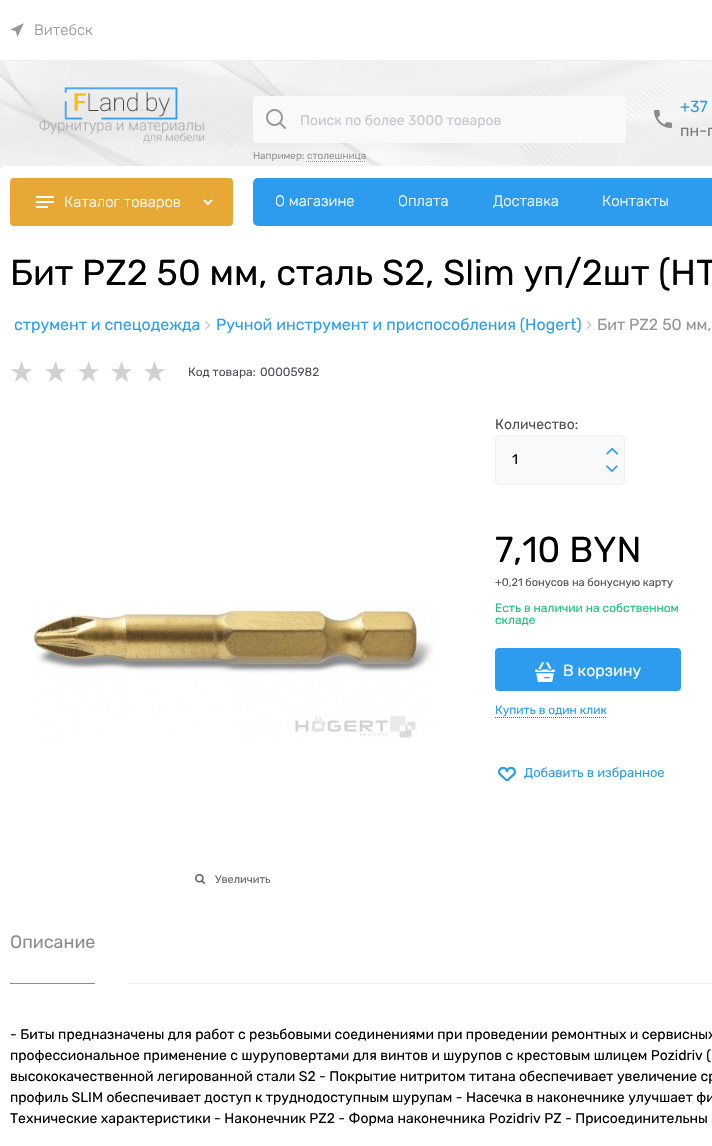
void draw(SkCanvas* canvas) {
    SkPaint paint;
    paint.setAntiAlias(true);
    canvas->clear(0xFFFFFFFF);
    canvas->drawImageRect(SkImages::DeferredFromEncodedData(SkData::MakeFromFileName("img1.png")), SkRect::MakeXYWH(0, 61, 712, 110), SkSamplingOptions());
    paint.setColor(0xFFEFEFF4);
    canvas->drawRect(SkRect::MakeXYWH(0, 60, 712, 1), paint);
    canvas->drawImageRect(SkImages::DeferredFromEncodedData(SkData::MakeFromFileName("img2.png")), SkRect::MakeXYWH(10, 23, 14, 14), SkSamplingOptions());
    SkFont font1(fontMgr->matchFamilyStyle("Rubik", SkFontStyle(300, SkFontStyle::kNormal_Width, SkFontStyle::kUpright_Slant)), 15);
    font1.setSubpixel(true);
    paint.setColor(0xFF94969B);
    canvas->drawString("Витебск", 34, 35, font1, paint);
    canvas->drawImageRect(SkImages::DeferredFromEncodedData(SkData::MakeFromFileName("img3.png")), SkRect::MakeXYWH(39, 87, 166, 57), SkSamplingOptions());
    paint.setColor(0xFFF9F9F9);
    canvas->drawRoundRect(SkRect::MakeXYWH(253, 96, 373, 47), 4, 4, paint);
    canvas->drawImageRect(SkImages::DeferredFromEncodedData(SkData::MakeFromFileName("img4.png")), SkRect::MakeXYWH(266, 109, 20, 20), SkSamplingOptions());
    SkFont font2(fontMgr->matchFamilyStyle("Rubik", SkFontStyle::Normal()), 14);
    font2.setSubpixel(true);
    paint.setColor(0xFFC8C7CC);
    canvas->drawString("Поиск по более 3000 товаров", 300, 125, font2, paint);
    SkFont font3(fontMgr->matchFamilyStyle("Rubik", SkFontStyle::Normal()), 10);
    font3.setSubpixel(true);
    paint.setColor(0xFF969494);
    canvas->drawString("Например: столешница", 253, 159, font3, paint);
    paint.setStyle(SkPaint::kStroke_Style);
    paint.setStrokeWidth(1);
    paint.setPathEffect(SkDashPathEffect::Make({{1, 1}}, 0));
    canvas->drawPath(SkPathBuilder().moveTo(306, 161.5f).lineTo(366, 161.5f).detach(), paint);
    paint.setPathEffect(nullptr);
    canvas->drawImageRect(SkImages::DeferredFromEncodedData(SkData::MakeFromFileName("img5.png")), SkRect::MakeXYWH(654, 110, 18, 18), SkSamplingOptions());
    SkFont font4(fontMgr->matchFamilyStyle("Rubik", SkFontStyle::Normal()), 16);
    font4.setSubpixel(true);
    paint.setStyle(SkPaint::kFill_Style);
    paint.setColor(0xFF2D9CEE);
    canvas->drawString("+37", 680, 112, font4, paint);
    paint.setColor(0xFF7A7A7A);
    canvas->drawString("пн-п", 680, 136, font4, paint);
    paint.setColor(0xFFFFFFFF);
    canvas->drawPath(SkPathBuilder().moveTo(5, 166).lineTo(712, 166).cubicTo(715, 166, 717, 168, 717, 171).lineTo(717, 238).lineTo(0, 238).lineTo(0, 171).cubicTo(0, 168, 2, 166, 5, 166).close().detach(), paint);
    paint.setColor(0xFFE7A835);
    canvas->drawRoundRect(SkRect::MakeXYWH(10, 178, 223, 48), 4, 4, paint);
    canvas->drawImageRect(SkImages::DeferredFromEncodedData(SkData::MakeFromFileName("img6.png")), SkRect::MakeXYWH(36, 196, 18, 12), SkSamplingOptions());
    paint.setColor(0xFFFFFFFF);
    canvas->drawString("Каталог товаров", 64, 207, font1, paint);
    canvas->drawImageRect(SkImages::DeferredFromEncodedData(SkData::MakeFromFileName("img7.png")), SkRect::MakeXYWH(203, 199, 10, 7), SkSamplingOptions());
    paint.setColor(0xFF2D9CEE);
    canvas->drawRoundRect(SkRect::MakeXYWH(253, 178, 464, 48), 5, 5, paint);
    paint.setColor(0xFFFFFFFF);
    canvas->drawString("О магазине", 275, 206, font1, paint);
    canvas->drawString("Оплата", 398, 206, font1, paint);
    canvas->drawString("Доставка", 493, 206, font1, paint);
    canvas->drawString("Контакты", 602, 206, font1, paint);
    SkFont font5(fontMgr->matchFamilyStyle("Rubik", SkFontStyle::Normal()), 36);
    font5.setSubpixel(true);
    paint.setColor(0xFF000000);
    canvas->drawString("Бит PZ2 50 мм, сталь S2, Slim уп/2шт (HT", 10, 285, font5, paint);
    paint.setColor(0xFF2D9CEE);
    canvas->drawString("струмент и спецодежда", 14, 330, font4, paint);
    canvas->drawImageRect(SkImages::DeferredFromEncodedData(SkData::MakeFromFileName("img8.png")), SkRect::MakeXYWH(205, 321, 5, 9), SkSamplingOptions());
    canvas->drawString("Ручной инструмент и приспособления (Hogert)", 216, 330, font4, paint);
    canvas->drawImageRect(SkImages::DeferredFromEncodedData(SkData::MakeFromFileName("img9.png")), SkRect::MakeXYWH(586, 320, 6, 10), SkSamplingOptions());
    paint.setColor(0xFF969494);
    canvas->drawString("Бит PZ2 50 мм,", 597, 330, font4, paint);
    canvas->drawImageRect(SkImages::DeferredFromEncodedData(SkData::MakeFromFileName("img10.png")), SkRect::MakeXYWH(11, 361, 21, 21), SkSamplingOptions());
    canvas->drawImageRect(SkImages::DeferredFromEncodedData(SkData::MakeFromFileName("img10.png")), SkRect::MakeXYWH(45, 361, 21, 21), SkSamplingOptions());
    canvas->drawImageRect(SkImages::DeferredFromEncodedData(SkData::MakeFromFileName("img10.png")), SkRect::MakeXYWH(78, 361, 21, 21), SkSamplingOptions());
    canvas->drawImageRect(SkImages::DeferredFromEncodedData(SkData::MakeFromFileName("img10.png")), SkRect::MakeXYWH(111, 361, 21, 21), SkSamplingOptions());
    canvas->drawImageRect(SkImages::DeferredFromEncodedData(SkData::MakeFromFileName("img10.png")), SkRect::MakeXYWH(144, 361, 21, 21), SkSamplingOptions());
    SkFont font6(fontMgr->matchFamilyStyle("Rubik", SkFontStyle::Normal()), 12);
    font6.setSubpixel(true);
    paint.setColor(0xFF4B4F58);
    canvas->drawString("Код товара:", 188, 376, font6, paint);
    canvas->drawString("00005982", 260, 376, font6, paint);
    canvas->drawString("Количество:", 495, 429, font2, paint);
    paint.setColor(0xFFF9F9F9);
    canvas->drawRoundRect(SkRect::MakeXYWH(495.5f, 435.5f, 129, 49), 3.5f, 3.5f, paint);
    paint.setStyle(SkPaint::kStroke_Style);
    paint.setColor(0xFFEFEFF4);
    canvas->drawRoundRect(SkRect::MakeXYWH(495.5f, 435.5f, 129, 49), 3.5f, 3.5f, paint);
    paint.setStyle(SkPaint::kFill_Style);
    paint.setColor(0xFF000000);
    canvas->drawString("1", 512, 464, font2, paint);
    canvas->drawImageRect(SkImages::DeferredFromEncodedData(SkData::MakeFromFileName("img11.png")), SkRect::MakeXYWH(606, 448, 12, 7), SkSamplingOptions());
    canvas->drawImageRect(SkImages::DeferredFromEncodedData(SkData::MakeFromFileName("img12.png")), SkRect::MakeXYWH(606, 465, 12, 7), SkSamplingOptions());
    canvas->drawString("7,10 BYN", 495, 562, font5, paint);
    SkFont font7(fontMgr->matchFamilyStyle("Rubik", SkFontStyle::Normal()), 11);
    font7.setSubpixel(true);
    paint.setColor(0xFF4B4F58);
    canvas->drawString("+0,21 бонусов на бонусную карту", 495, 586, font7, paint);
    paint.setColor(0xFF1EC17B);
    canvas->drawString("Есть в наличии на собственном", 495, 612, font6, paint);
    canvas->drawString("складе", 495, 624, font6, paint);
    paint.setColor(0xFF2D9CEE);
    canvas->drawRoundRect(SkRect::MakeXYWH(495, 648, 186, 43), 4, 4, paint);
    canvas->drawImageRect(SkImages::DeferredFromEncodedData(SkData::MakeFromFileName("img13.png")), SkRect::MakeXYWH(535, 662, 20, 20), SkSamplingOptions());
    paint.setColor(0xFFFFFFFF);
    canvas->drawString("В корзину", 563, 676, font4, paint);
    paint.setColor(0xFF2D9CEE);
    canvas->drawString("Купить в один клик", 495, 714, font6, paint);
    paint.setStyle(SkPaint::kStroke_Style);
    paint.setColor(0xFF666666);
    paint.setPathEffect(SkDashPathEffect::Make({{1, 1}}, 0));
    canvas->drawPath(SkPathBuilder().moveTo(495, 717.5f).lineTo(607, 717.5f).detach(), paint);
    paint.setPathEffect(nullptr);
    canvas->drawImageRect(SkImages::DeferredFromEncodedData(SkData::MakeFromFileName("img14.png")), SkRect::MakeXYWH(498, 766, 18, 16), SkSamplingOptions());
    SkFont font8(fontMgr->matchFamilyStyle("Rubik", SkFontStyle::Normal()), 13);
    font8.setSubpixel(true);
    paint.setStyle(SkPaint::kFill_Style);
    paint.setColor(0xFF2D9CEE);
    canvas->drawString("Добавить в избранное", 524, 777, font8, paint);
    canvas->drawImageRect(SkImages::DeferredFromEncodedData(SkData::MakeFromFileName("img15.png")), SkRect::MakeXYWH(33, 604, 401, 135), SkSamplingOptions());
    canvas->drawImageRect(SkImages::DeferredFromEncodedData(SkData::MakeFromFileName("img16.png")), SkRect::MakeXYWH(195, 873, 11, 12), SkSamplingOptions());
    paint.setColor(0xFF666666);
    canvas->drawString("Увеличить", 215, 883, font7, paint);
    paint.setColor(0xFF8A8A8F);
    canvas->drawRect(SkRect::MakeXYWH(10, 983, 85, 1), paint);
    SkFont font9(fontMgr->matchFamilyStyle("Rubik", SkFontStyle::Normal()), 18);
    font9.setSubpixel(true);
    canvas->drawString("Описание", 10, 948, font9, paint);
    paint.setColor(0xFFEFEFF4);
    canvas->drawRect(SkRect::MakeXYWH(129, 983, 583, 1), paint);
    paint.setColor(0xFF000000);
    canvas->drawString("- Биты предназначены для работ с резьбовыми соединениями при проведении ремонтных и сервисных", 10, 1039, font2, paint);
    canvas->drawString("профессиональное применение с шуруповертами для винтов и шурупов с крестовым шлицем Pozidriv (", 10, 1060, font2, paint);
    canvas->drawString("высококачественной легированной стали S2 - Покрытие нитритом титана обеспечивает увеличение ср", 10, 1081, font2, paint);
    canvas->drawString("профиль SLIM обеспечивает доступ к труднодоступным шурупам - Насечка в наконечнике улучшает фи", 10, 1102, font2, paint);
    canvas->drawString("Технические характеристики - Наконечник PZ2 - Форма наконечника Pozidriv PZ - Присоединительны", 10, 1123, font2, paint);
}
